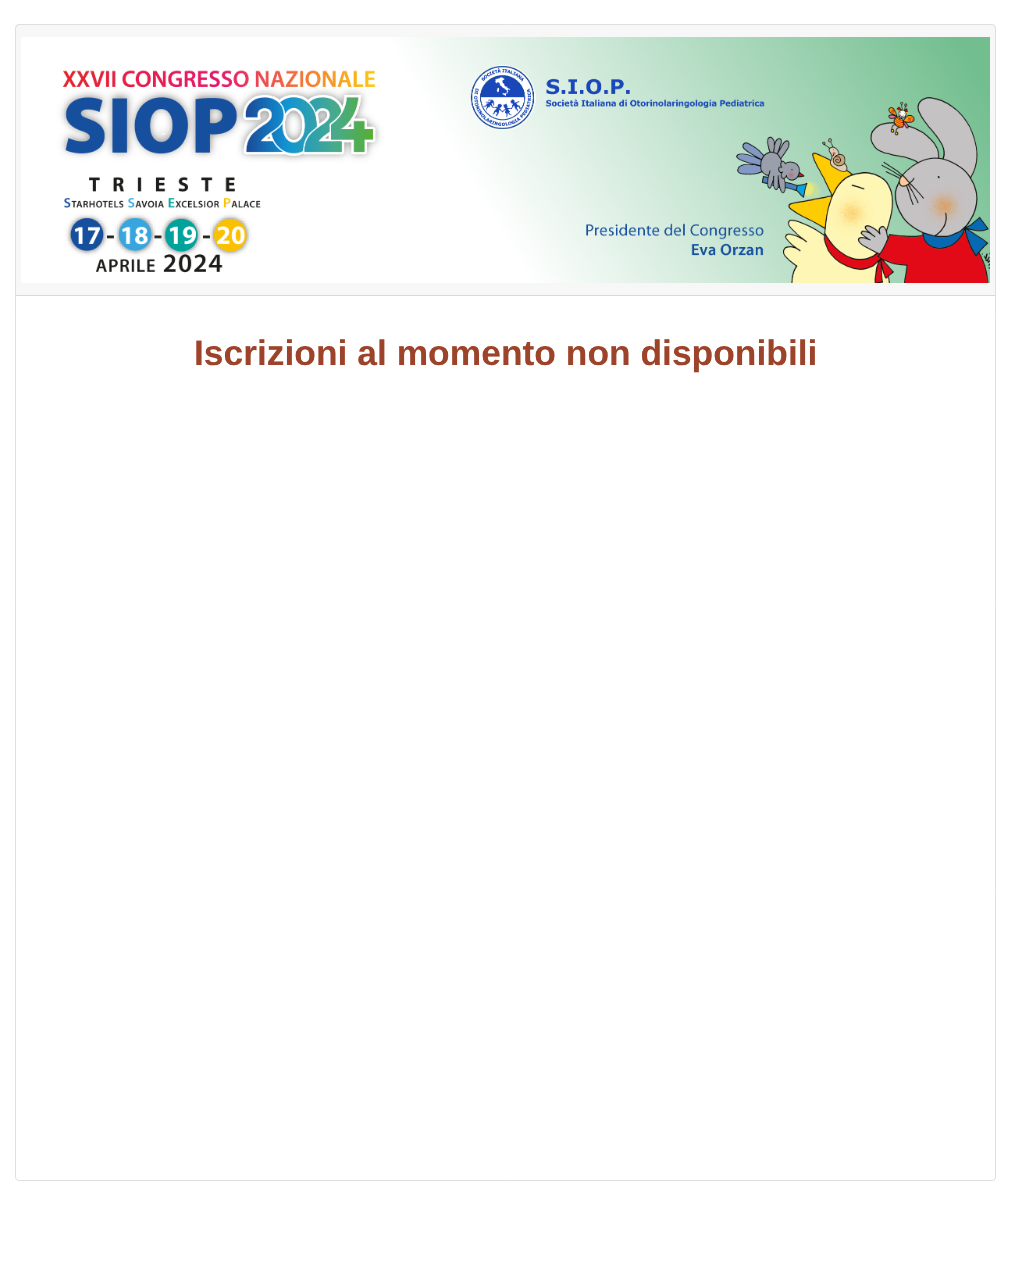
void draw(SkCanvas* canvas) {
    SkPaint paint;
    paint.setAntiAlias(true);
    canvas->clear(0xFFFFFFFF);
    paint.setStyle(SkPaint::kStroke_Style);
    paint.setStrokeWidth(1);
    paint.setColor(0xFFDFDFDF);
    canvas->drawRoundRect(SkRect::MakeXYWH(15.5f, 24.5f, 980, 1156), 3.5f, 3.5f, paint);
    paint.setStyle(SkPaint::kFill_Style);
    paint.setColor(0x08000000);
    canvas->drawRect(SkRect::MakeXYWH(16, 25, 979, 270), paint);
    paint.setColor(0xFFD8D8D8);
    canvas->drawRect(SkRect::MakeXYWH(16, 295, 979, 1), paint);
    canvas->drawImageRect(SkImages::DeferredFromEncodedData(SkData::MakeFromFileName("img1.png")), SkRect::MakeXYWH(21, 37, 969, 246), SkSamplingOptions());
    SkFont font1(fontMgr->matchFamilyStyle("Liberation Sans", SkFontStyle::Bold()), 35.4f);
    font1.setSubpixel(true);
    paint.setColor(0xFF9D4329);
    canvas->drawString("Iscrizioni al momento non disponibili", 194, 365, font1, paint);
}
